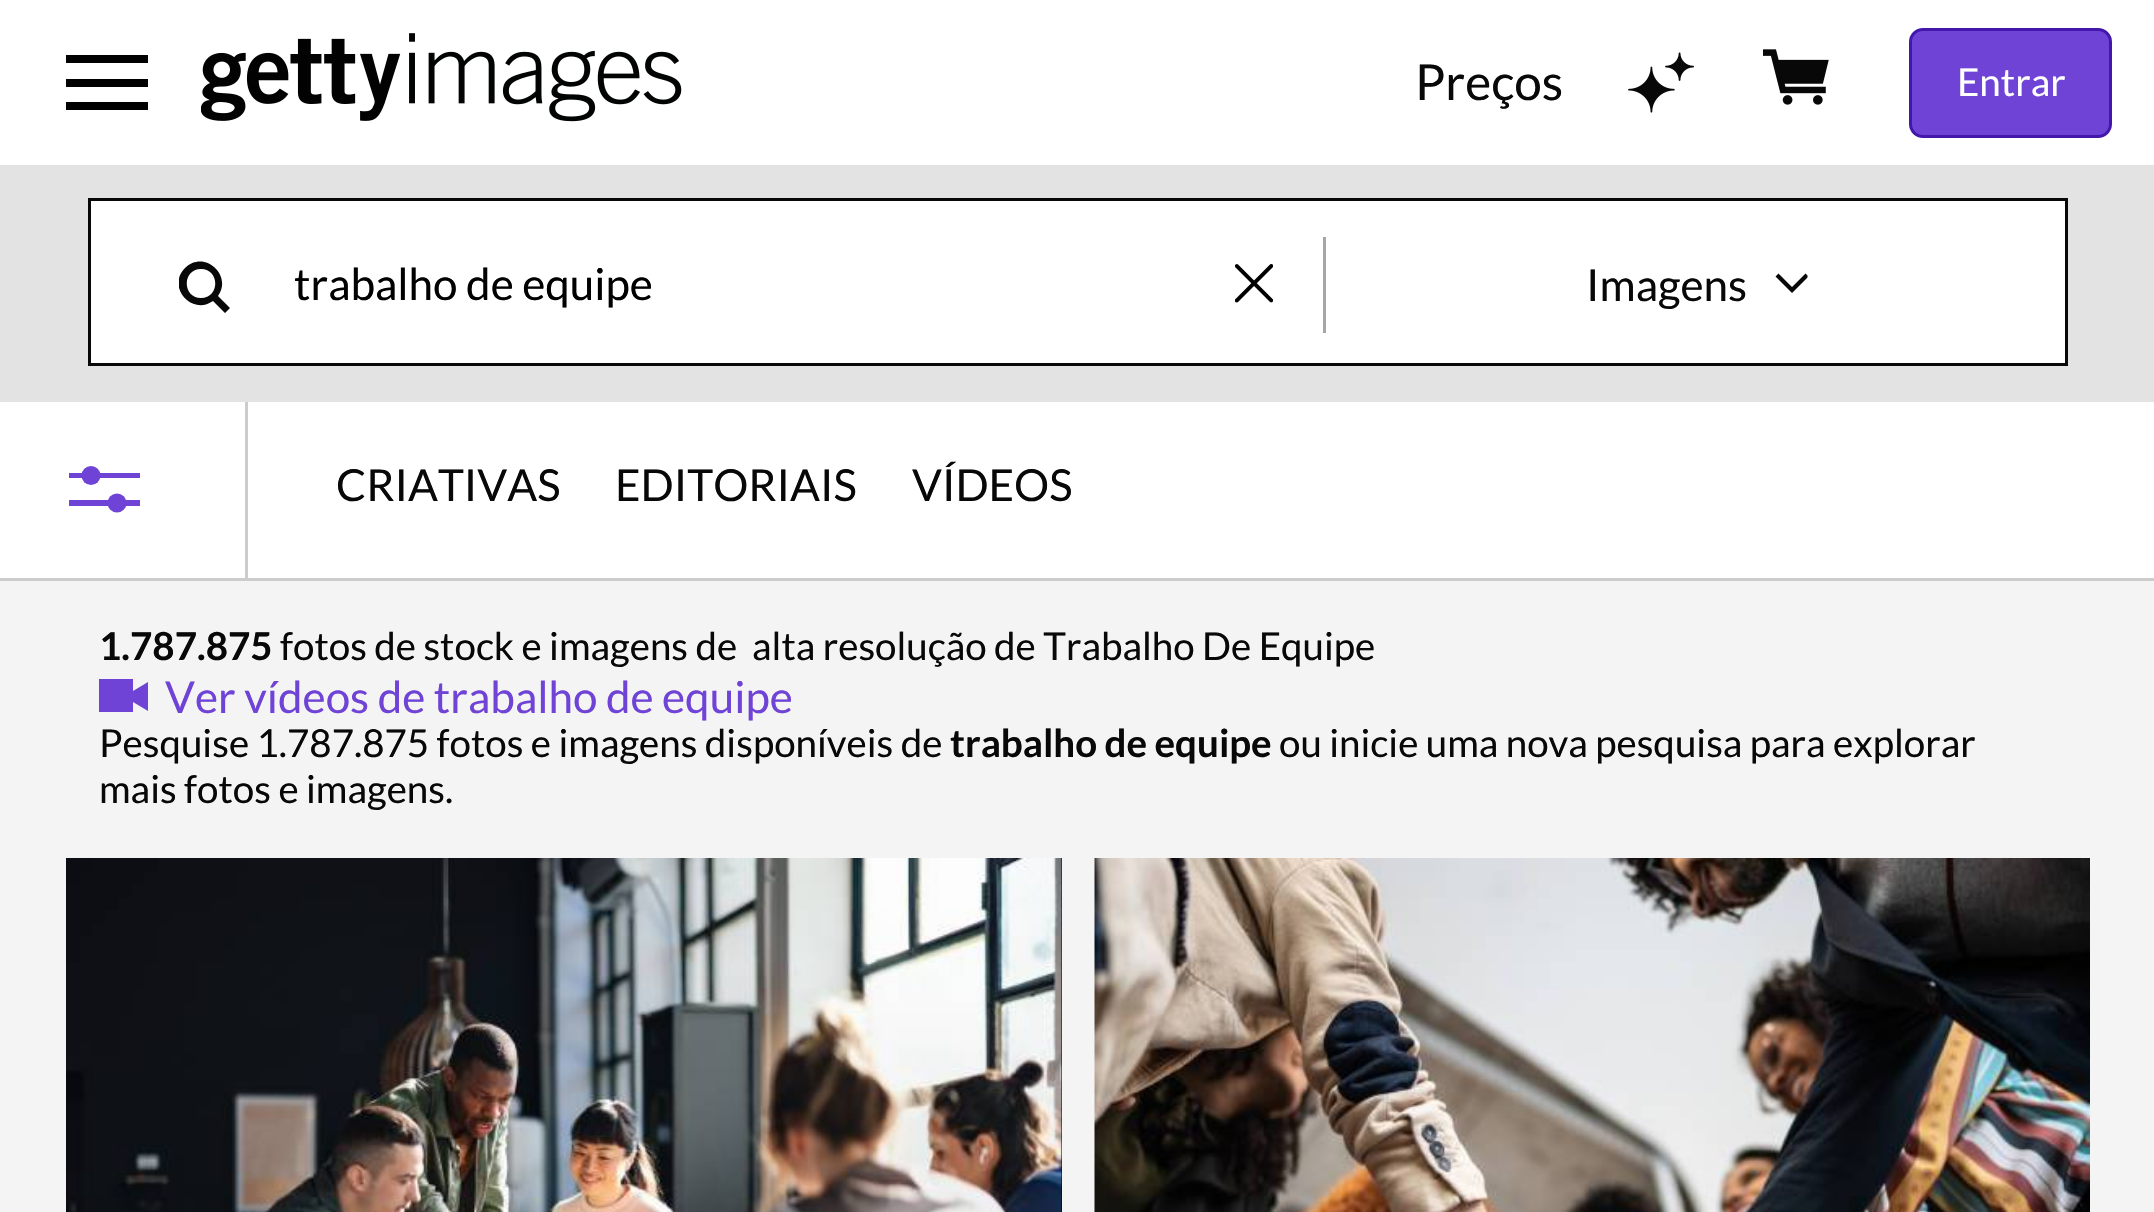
void draw(SkCanvas* canvas) {
    SkPaint paint;
    paint.setAntiAlias(true);
    canvas->clear(0xFFFFFFFF);
    paint.setColor(0xFF000000);
    canvas->drawPath(SkPathBuilder().moveTo(66, 55).lineTo(148, 55).lineTo(148, 63).lineTo(66, 63).close().moveTo(66, 79).lineTo(148, 79).lineTo(148, 87).lineTo(66, 87).close().moveTo(66, 102).lineTo(148, 102).lineTo(148, 110).lineTo(66, 110).close().detach(), paint);
    canvas->drawImageRect(SkImages::DeferredFromEncodedData(SkData::MakeFromFileName("img1.png")), SkRect::MakeXYWH(201, 33, 481, 89), SkSamplingOptions());
    SkFont font1(fontMgr->matchFamilyStyle("Lato", SkFontStyle::Normal()), 49.5f);
    font1.setSubpixel(true);
    paint.setColor(0xFF080808);
    canvas->drawString("Preços", 1415, 100, font1, paint);
    canvas->drawImageRect(SkImages::DeferredFromEncodedData(SkData::MakeFromFileName("img2.png")), SkRect::MakeXYWH(1628, 52, 66, 61), SkSamplingOptions());
    canvas->drawImageRect(SkImages::DeferredFromEncodedData(SkData::MakeFromFileName("img3.png")), SkRect::MakeXYWH(1763, 49, 66, 56), SkSamplingOptions());
    paint.setColor(0xFF6F43D6);
    canvas->drawRoundRect(SkRect::MakeXYWH(1910.5f, 29.5f, 200, 107), 12.5f, 12.5f, paint);
    paint.setStyle(SkPaint::kStroke_Style);
    paint.setStrokeWidth(3);
    paint.setColor(0xFF4316AC);
    canvas->drawRoundRect(SkRect::MakeXYWH(1910.5f, 29.5f, 200, 107), 12.5f, 12.5f, paint);
    SkFont font2(fontMgr->matchFamilyStyle("Lato", SkFontStyle::Normal()), 38.5f);
    font2.setSubpixel(true);
    paint.setStyle(SkPaint::kFill_Style);
    paint.setColor(0xFFFFFFFF);
    canvas->drawString("Entrar", 1957, 96, font2, paint);
    paint.setColor(0xFFF4F4F4);
    canvas->drawRect(SkRect::MakeXYWH(0, 581, 2154, 631), paint);
    paint.setColor(0xFFE3E3E3);
    canvas->drawRect(SkRect::MakeXYWH(0, 165, 2154, 237), paint);
    paint.setStyle(SkPaint::kStroke_Style);
    paint.setColor(0xFF080808);
    canvas->drawRect(SkRect::MakeXYWH(89.5f, 199.5f, 1977, 165), paint);
    paint.setStyle(SkPaint::kFill_Style);
    paint.setColor(0xFFFFFFFF);
    canvas->drawRect(SkRect::MakeXYWH(91, 201, 1974, 162), paint);
    canvas->save();
    canvas->clipRect(SkRect::MakeXYWH(179, 261, 55, 55));
    paint.setColor(0xFF080808);
    canvas->drawPath(SkPathBuilder().moveTo(230, 308).lineTo(218, 296).cubicTo(233, 275, 204, 249, 185, 268).cubicTo(166, 287, 192, 316, 213, 301).lineTo(225, 313).close().moveTo(201, 298).cubicTo(182, 298, 182, 269, 201, 269).cubicTo(220, 269, 220, 298, 201, 298).close().detach(), paint);
    canvas->restore();
    SkFont font3(fontMgr->matchFamilyStyle("Lato", SkFontStyle::Normal()), 44);
    font3.setSubpixel(true);
    paint.setColor(0xFF000000);
    canvas->drawString("trabalho de equipe", 294, 300, font3, paint);
    canvas->drawImageRect(SkImages::DeferredFromEncodedData(SkData::MakeFromFileName("img4.png")), SkRect::MakeXYWH(1235, 264, 38, 39), SkSamplingOptions());
    paint.setColor(0xFFA6A6A6);
    canvas->drawRect(SkRect::MakeXYWH(1323, 237, 3, 96), paint);
    paint.setColor(0xFF080808);
    canvas->drawString("Imagens", 1586, 301, font3, paint);
    canvas->drawPath(SkPathBuilder().moveTo(1792, 293).lineTo(1775.5f, 276.5f).lineTo(1778.5f, 273.5f).lineTo(1792, 287).lineTo(1805.5f, 273.5f).lineTo(1807.5f, 275.5f).lineTo(1807.5f, 277.5f).close().detach(), paint);
    paint.setColor(0xFFCCCCCC);
    canvas->drawRect(SkRect::MakeXYWH(0, 578, 2154, 3), paint);
    canvas->drawRect(SkRect::MakeXYWH(245, 402, 3, 176), paint);
    paint.setColor(0xFF6F43D6);
    canvas->drawPath(SkPathBuilder().moveTo(140, 478).lineTo(69, 478).lineTo(69, 473).lineTo(140, 473).close().moveTo(140, 506).lineTo(69, 506).lineTo(69, 500).lineTo(140, 500).close().detach(), paint);
    canvas->drawCircle(91, 475.5f, 9.5f, paint);
    canvas->drawCircle(117, 503, 9.5f, paint);
    paint.setColor(0xFF080808);
    canvas->drawString("CRIATIVAS", 336, 501, font3, paint);
    canvas->drawString("EDITORIAIS", 615, 501, font3, paint);
    canvas->drawString("VÍDEOS", 912, 501, font3, paint);
    SkFont font4(fontMgr->matchFamilyStyle("Lato", SkFontStyle::Bold()), 38.5f);
    font4.setSubpixel(true);
    canvas->drawString("1.787.875", 99, 660, font4, paint);
    canvas->drawString("fotos de stock e imagens de  alta resolução de Trabalho De Equipe", 280, 660, font2, paint);
    canvas->save();
    canvas->clipRect(SkRect::MakeXYWH(99, 679, 50, 33));
    paint.setColor(0xFF6F43D6);
    canvas->drawPath(SkPathBuilder().moveTo(148, 682).lineTo(133, 691).lineTo(133, 679).lineTo(99, 679).lineTo(99, 713).lineTo(133, 713).lineTo(133, 702).lineTo(148, 711).close().detach(), paint);
    canvas->restore();
    canvas->drawString("Ver vídeos de trabalho de equipe", 165, 713, font3, paint);
    paint.setColor(0xFF080808);
    canvas->drawString("Pesquise 1.787.875 fotos e imagens disponíveis de", 99, 757, font2, paint);
    canvas->drawString("trabalho de equipe", 950, 757, font4, paint);
    canvas->drawString("ou inicie uma nova pesquisa para explorar", 1279, 757, font2, paint);
    canvas->drawString("mais fotos e imagens.", 99, 803, font2, paint);
    paint.setColor(0xFF000000);
    canvas->drawRect(SkRect::MakeXYWH(1061, 858, 1, 354), paint);
    canvas->drawImageRect(SkImages::DeferredFromEncodedData(SkData::MakeFromFileName("img5.png")), SkRect::MakeXYWH(66, 858, 996, 354), SkSamplingOptions());
    canvas->drawImageRect(SkImages::DeferredFromEncodedData(SkData::MakeFromFileName("img6.png")), SkRect::MakeXYWH(1094, 858, 996, 354), SkSamplingOptions());
}
